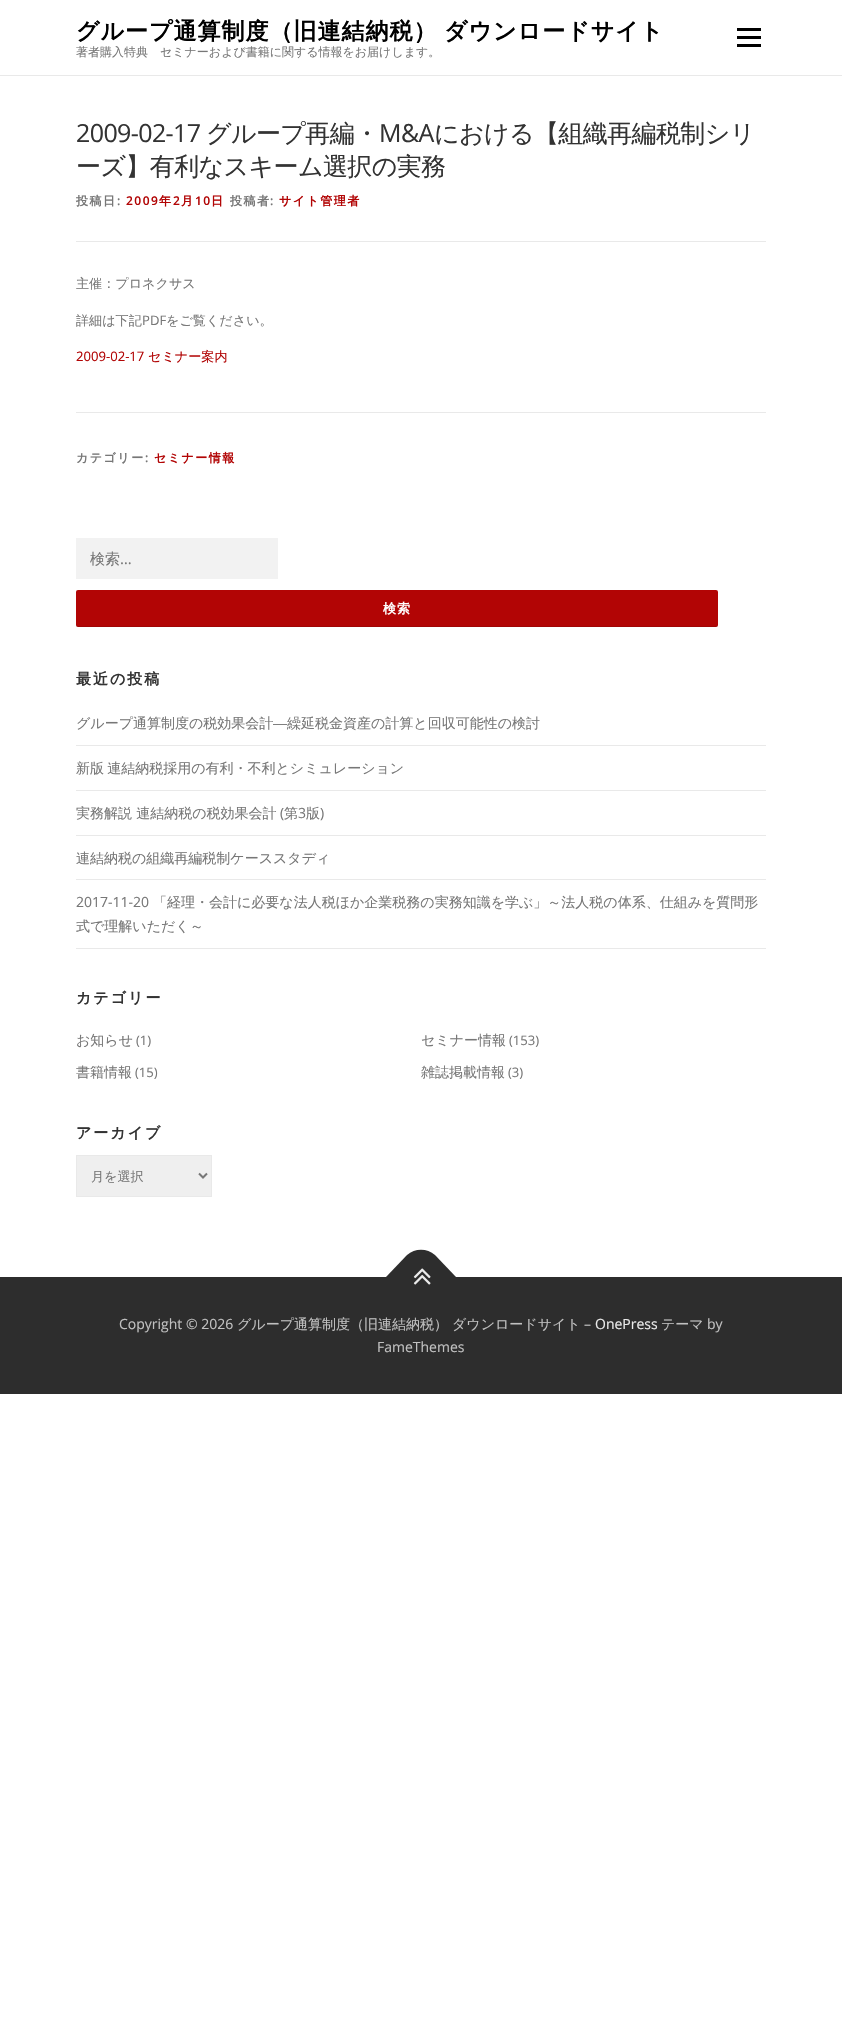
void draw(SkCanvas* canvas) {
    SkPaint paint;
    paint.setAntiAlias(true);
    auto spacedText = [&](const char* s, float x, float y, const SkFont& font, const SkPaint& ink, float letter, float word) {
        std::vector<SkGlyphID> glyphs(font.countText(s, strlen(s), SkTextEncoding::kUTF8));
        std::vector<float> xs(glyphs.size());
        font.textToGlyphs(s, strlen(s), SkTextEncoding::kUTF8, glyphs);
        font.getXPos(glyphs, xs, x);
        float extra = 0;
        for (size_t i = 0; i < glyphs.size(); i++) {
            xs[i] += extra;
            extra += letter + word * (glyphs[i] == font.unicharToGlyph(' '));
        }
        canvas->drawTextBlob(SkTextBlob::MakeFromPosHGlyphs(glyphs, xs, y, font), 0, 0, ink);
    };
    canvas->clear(0xFFFFFFFF);
    SkFont font1(fontMgr->matchFamilyStyle("WenQuanYi Zen Hei", SkFontStyle::Bold()), 23);
    font1.setSubpixel(true);
    paint.setColor(0xFF000000);
    spacedText("グループ通算制度（旧連結納税）", 76, 39, font1, paint, 1, 0);
    spacedText("ダウンロードサイト", 444, 39, font1, paint, 1, 0);
    SkFont font2(fontMgr->matchFamilyStyle("WenQuanYi Zen Hei", SkFontStyle(500, SkFontStyle::kNormal_Width, SkFontStyle::kUpright_Slant)), 12);
    font2.setSubpixel(true);
    paint.setColor(0xFF777777);
    canvas->drawString("著者購入特典　セミナーおよび書籍に関する情報をお届けします。", 76, 56, font2, paint);
    paint.setColor(0xFF000000);
    canvas->drawRect(SkRect::MakeXYWH(737, 36, 24, 3), paint);
    canvas->drawRect(SkRect::MakeXYWH(737, 28, 24, 3), paint);
    canvas->drawRect(SkRect::MakeXYWH(737, 44, 24, 3), paint);
    paint.setColor(0xFFE9E9E9);
    canvas->drawRect(SkRect::MakeXYWH(0, 75, 842, 1), paint);
    SkFont font3(fontMgr->matchFamilyStyle("Open Sans", SkFontStyle::Normal()), 25);
    font3.setSubpixel(true);
    paint.setColor(0xFF333333);
    spacedText("2009-02-17", 76, 142, font3, paint, -0.6f, 0);
    SkFont font4(fontMgr->matchFamilyStyle("WenQuanYi Zen Hei", SkFontStyle(500, SkFontStyle::kNormal_Width, SkFontStyle::kUpright_Slant)), 25);
    font4.setSubpixel(true);
    spacedText("グループ再編・", 206, 142, font4, paint, -0.6f, 0);
    spacedText("M&A", 379, 142, font3, paint, -0.6f, 0);
    spacedText("における【組織再編税制シリ", 434, 142, font4, paint, -0.6f, 0);
    spacedText("ーズ】有利なスキーム選択の実務", 76, 175, font4, paint, -0.6f, 0);
    paint.setColor(0xFFE9E9E9);
    canvas->drawRect(SkRect::MakeXYWH(76, 241, 690, 1), paint);
    SkFont font5(fontMgr->matchFamilyStyle("WenQuanYi Zen Hei", SkFontStyle::Bold()), 12);
    font5.setSubpixel(true);
    paint.setColor(0xFF777777);
    spacedText("投稿日", 76, 205, font5, paint, 1.5f, 0);
    SkFont font6(fontMgr->matchFamilyStyle("Open Sans", SkFontStyle(600, SkFontStyle::kNormal_Width, SkFontStyle::kUpright_Slant)), 12);
    font6.setSubpixel(true);
    spacedText(":", 117, 205, font6, paint, 1.5f, 0);
    paint.setColor(0xFFB20505);
    spacedText("2009", 126, 205, font6, paint, 1.5f, 0);
    spacedText("年", 159, 205, font5, paint, 1.5f, 0);
    spacedText("2", 173, 205, font6, paint, 1.5f, 0);
    spacedText("月", 181, 205, font5, paint, 1.5f, 0);
    spacedText("10", 195, 205, font6, paint, 1.5f, 0);
    spacedText("日", 211, 205, font5, paint, 1.5f, 0);
    paint.setColor(0xFF777777);
    spacedText("投稿者", 230, 205, font5, paint, 1.5f, 0);
    spacedText(":", 270, 205, font6, paint, 1.5f, 0);
    paint.setColor(0xFFB20505);
    spacedText("サイト管理者", 279, 205, font5, paint, 1.5f, 0);
    SkFont font7(fontMgr->matchFamilyStyle("WenQuanYi Zen Hei", SkFontStyle(500, SkFontStyle::kNormal_Width, SkFontStyle::kUpright_Slant)), 13.1f);
    font7.setSubpixel(true);
    paint.setColor(0xFF777777);
    canvas->drawString("主催：プロネクサス", 76, 288, font7, paint);
    canvas->drawString("詳細は下記", 76, 325, font7, paint);
    SkFont font8(fontMgr->matchFamilyStyle("Open Sans", SkFontStyle::Normal()), 13.1f);
    font8.setSubpixel(true);
    canvas->drawString("PDF", 142, 325, font8, paint);
    canvas->drawString("をご覧ください。", 166, 325, font7, paint);
    paint.setColor(0xFFB20505);
    canvas->drawString("2009-02-17", 76, 361, font8, paint);
    canvas->drawString("セミナー案内", 148, 361, font7, paint);
    paint.setColor(0xFFE9E9E9);
    canvas->drawRect(SkRect::MakeXYWH(76, 412, 690, 1), paint);
    paint.setColor(0xFF777777);
    spacedText("カテゴリー", 76, 462, font5, paint, 1.5f, 0);
    spacedText(":", 145, 462, font6, paint, 1.5f, 0);
    paint.setColor(0xFFB20505);
    spacedText("セミナー情報", 154, 462, font5, paint, 1.5f, 0);
    paint.setColor(0xFFF2F2F2);
    canvas->drawRect(SkRect::MakeXYWH(76, 538, 202, 41), paint);
    SkFont font9(fontMgr->matchFamilyStyle("WenQuanYi Zen Hei", SkFontStyle(500, SkFontStyle::kNormal_Width, SkFontStyle::kUpright_Slant)), 15);
    font9.setSubpixel(true);
    paint.setColor(0xFF777777);
    canvas->drawString("検索", 90, 564, font9, paint);
    SkFont font10(fontMgr->matchFamilyStyle("Open Sans", SkFontStyle::Normal()), 15);
    font10.setSubpixel(true);
    canvas->drawString("…", 120, 564, font10, paint);
    paint.setColor(0xFFB20505);
    canvas->drawRoundRect(SkRect::MakeXYWH(76, 590, 642, 37), 2, 2, paint);
    paint.setColor(0x1A000000);
    canvas->drawPath(SkPathBuilder().moveTo(76, 624).cubicTo(76, 625, 76, 627, 78, 627).lineTo(716, 627).cubicTo(718, 627, 718, 625, 718, 624).cubicTo(718, 625, 717, 626, 716, 626).lineTo(78, 626).cubicTo(77, 626, 76, 625, 76, 624).close().detach(), paint);
    SkFont font11(fontMgr->matchFamilyStyle("WenQuanYi Zen Hei", SkFontStyle::Bold()), 13);
    font11.setSubpixel(true);
    paint.setColor(0xFFFFFFFF);
    spacedText("検索", 383, 613, font11, paint, 1, 0);
    SkFont font12(fontMgr->matchFamilyStyle("WenQuanYi Zen Hei", SkFontStyle::Bold()), 15);
    font12.setSubpixel(true);
    paint.setColor(0xFF333333);
    spacedText("最近の投稿", 76, 684, font12, paint, 2, 0);
    paint.setColor(0xFFE9E9E9);
    canvas->drawRect(SkRect::MakeXYWH(76, 745, 690, 1), paint);
    SkFont font13(fontMgr->matchFamilyStyle("WenQuanYi Zen Hei", SkFontStyle(500, SkFontStyle::kNormal_Width, SkFontStyle::kUpright_Slant)), 14);
    font13.setSubpixel(true);
    paint.setColor(0xFF777777);
    canvas->drawString("グループ通算制度の税効果会計", 76, 728, font13, paint);
    SkFont font14(fontMgr->matchFamilyStyle("Liberation Sans", SkFontStyle::Normal()), 14);
    font14.setSubpixel(true);
    canvas->drawString("―", 273, 728, font14, paint);
    canvas->drawString("繰延税金資産の計算と回収可能性の検討", 287, 728, font13, paint);
    paint.setColor(0xFFE9E9E9);
    canvas->drawRect(SkRect::MakeXYWH(76, 790, 690, 1), paint);
    paint.setColor(0xFF777777);
    spacedText("新版 連結納税採用の有利・不利とシミュレーション", 76, 773, font13, paint, 0, -1);
    paint.setColor(0xFFE9E9E9);
    canvas->drawRect(SkRect::MakeXYWH(76, 835, 690, 1), paint);
    paint.setColor(0xFF777777);
    canvas->drawString("実務解説 連結納税の税効果会計", 76, 818, font13, paint);
    SkFont font15(fontMgr->matchFamilyStyle("Open Sans", SkFontStyle::Normal()), 14);
    font15.setSubpixel(true);
    canvas->drawString("(", 280, 818, font15, paint);
    canvas->drawString("第", 284, 818, font13, paint);
    canvas->drawString("3", 298, 818, font15, paint);
    canvas->drawString("版", 306, 818, font13, paint);
    canvas->drawString(")", 320, 818, font15, paint);
    paint.setColor(0xFFE9E9E9);
    canvas->drawRect(SkRect::MakeXYWH(76, 879, 690, 1), paint);
    paint.setColor(0xFF777777);
    canvas->drawString("連結納税の組織再編税制ケーススタディ", 76, 863, font13, paint);
    paint.setColor(0xFFE9E9E9);
    canvas->drawRect(SkRect::MakeXYWH(76, 948, 690, 1), paint);
    paint.setColor(0xFF777777);
    canvas->drawString("2017-11-20", 76, 907, font15, paint);
    canvas->drawString("「経理・会計に必要な法人税ほか企業税務の実務知識を学ぶ」～法人税の体系、仕組みを質問形", 153, 907, font13, paint);
    canvas->drawString("式で理解いただく～", 76, 931, font13, paint);
    paint.setColor(0xFF333333);
    spacedText("カテゴリー", 76, 1003, font12, paint, 2, 0);
    paint.setColor(0xFF777777);
    canvas->drawString("お知らせ", 76, 1045, font13, paint);
    canvas->drawString("(1)", 136, 1045, font8, paint);
    canvas->drawString("セミナー情報", 421, 1045, font13, paint);
    canvas->drawString("(153)", 509, 1045, font8, paint);
    canvas->drawString("書籍情報", 76, 1077, font13, paint);
    canvas->drawString("(15)", 135, 1077, font8, paint);
    canvas->drawString("雑誌掲載情報", 421, 1077, font13, paint);
    canvas->drawString("(3)", 508, 1077, font8, paint);
    paint.setColor(0xFF333333);
    spacedText("アーカイブ", 76, 1138, font12, paint, 2, 0);
    paint.setColor(0xFFEFEFEF);
    canvas->drawRect(SkRect::MakeXYWH(76.5f, 1155.5f, 135, 41), paint);
    paint.setStyle(SkPaint::kStroke_Style);
    paint.setStrokeWidth(1);
    paint.setColor(0xFFE9E9E9);
    canvas->drawRect(SkRect::MakeXYWH(76.5f, 1155.5f, 135, 41), paint);
    paint.setStrokeWidth(2);
    paint.setColor(0xFF777777);
    canvas->drawPath(SkPathBuilder().moveTo(199, 1173.5f).lineTo(203, 1177.5f).lineTo(207, 1173.5f).detach(), paint);
    paint.setStyle(SkPaint::kFill_Style);
    canvas->drawString("月を選択", 91, 1181, font7, paint);
    paint.setColor(0xFF2D2D2D);
    canvas->drawRect(SkRect::MakeXYWH(0, 1277, 842, 117), paint);
    canvas->drawPath(SkPathBuilder().moveTo(386, 1277).lineTo(407, 1255).cubicTo(415, 1248, 427, 1248, 435, 1255).lineTo(456, 1277).lineTo(421, 1312).close().detach(), paint);
    canvas->drawImageRect(SkImages::DeferredFromEncodedData(SkData::MakeFromFileName("img1.png")), SkRect::MakeXYWH(413, 1268, 18, 17), SkSamplingOptions());
    paint.setColor(0xFFC0C0C0);
    canvas->drawString("Copyright © 2026", 119, 1329, font15, paint);
    canvas->drawString("グループ通算制度（旧連結納税）", 237, 1329, font13, paint);
    canvas->drawString("ダウンロードサイト", 452, 1329, font13, paint);
    canvas->drawString("–", 584, 1329, font15, paint);
    paint.setColor(0xFFEAEAEA);
    canvas->drawString("OnePress", 595, 1329, font15, paint);
    paint.setColor(0xFFC0C0C0);
    canvas->drawString("テーマ", 661, 1329, font13, paint);
    canvas->drawString("by", 707, 1329, font15, paint);
    canvas->drawString("FameThemes", 377, 1352, font15, paint);
}
